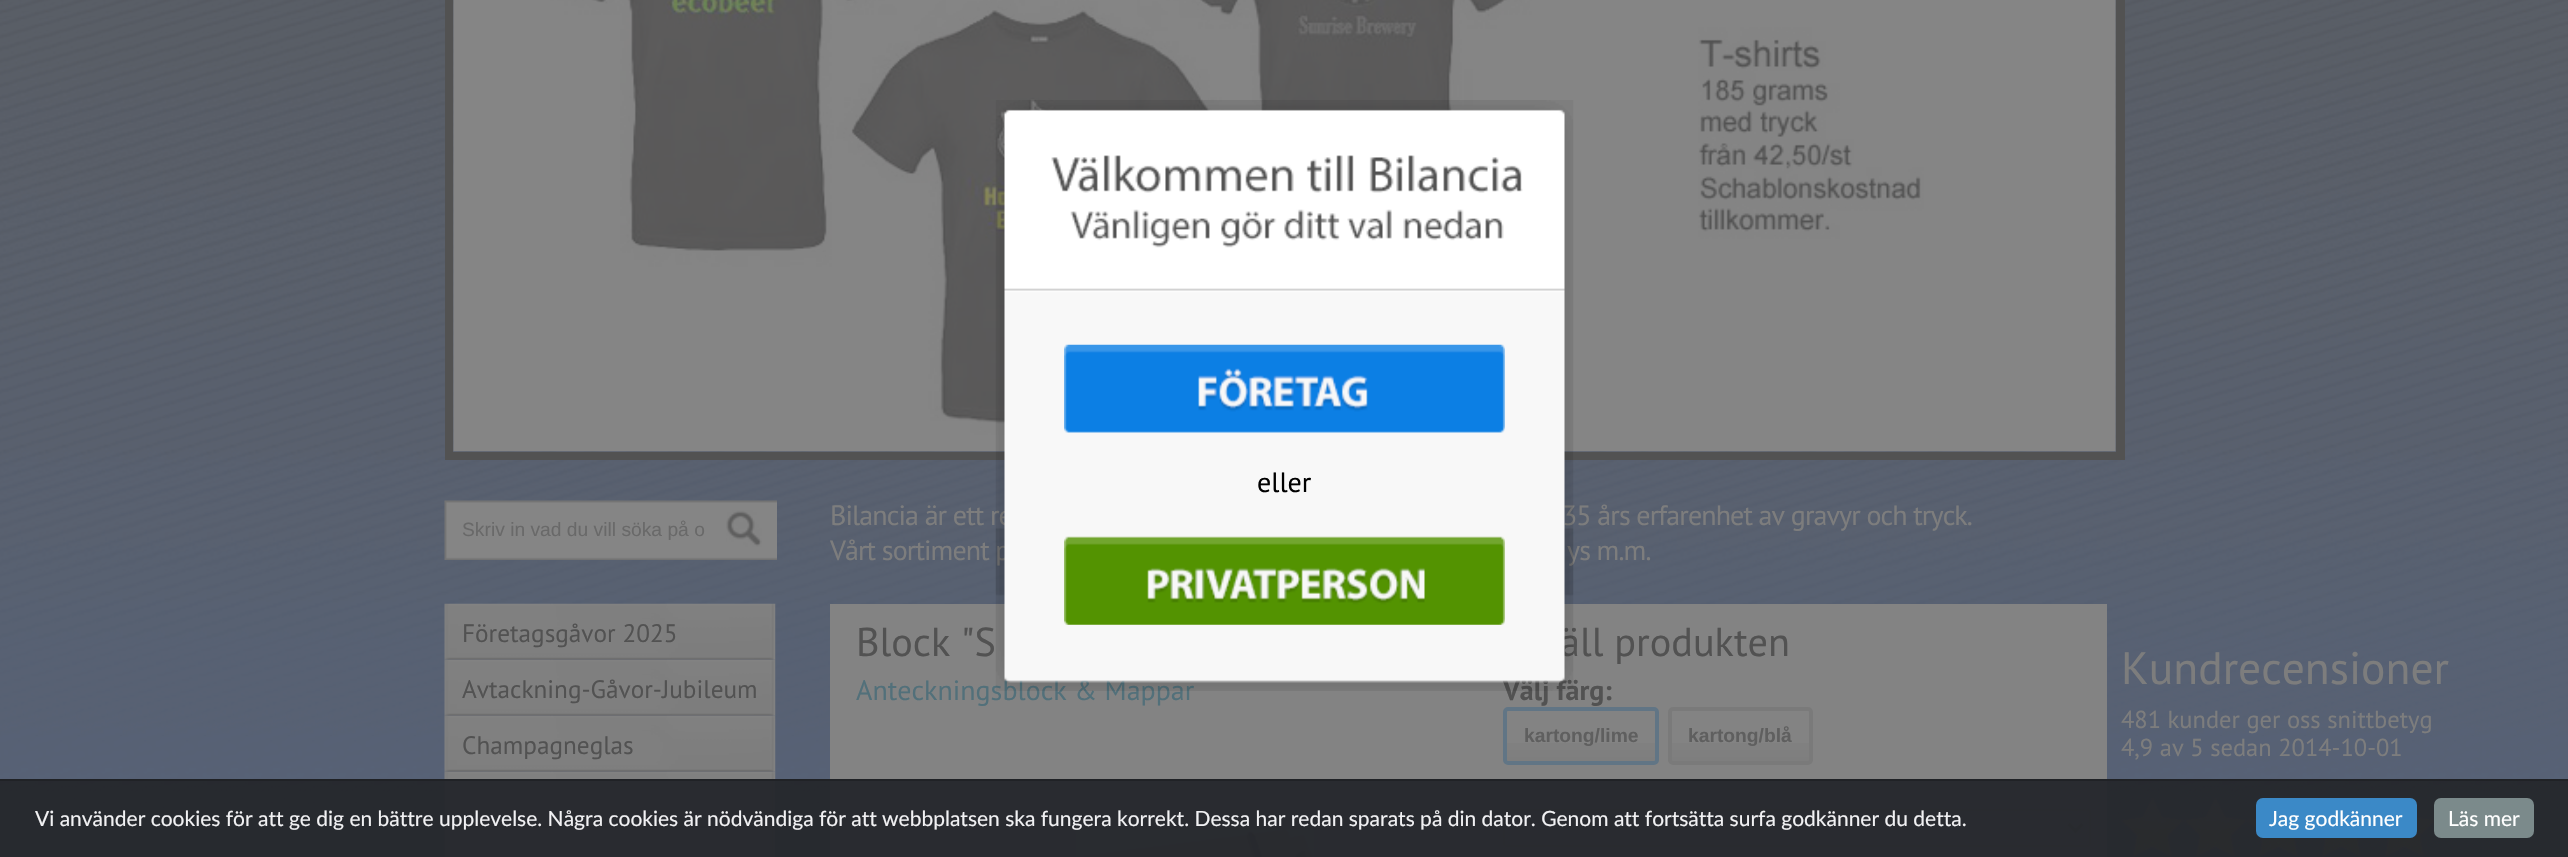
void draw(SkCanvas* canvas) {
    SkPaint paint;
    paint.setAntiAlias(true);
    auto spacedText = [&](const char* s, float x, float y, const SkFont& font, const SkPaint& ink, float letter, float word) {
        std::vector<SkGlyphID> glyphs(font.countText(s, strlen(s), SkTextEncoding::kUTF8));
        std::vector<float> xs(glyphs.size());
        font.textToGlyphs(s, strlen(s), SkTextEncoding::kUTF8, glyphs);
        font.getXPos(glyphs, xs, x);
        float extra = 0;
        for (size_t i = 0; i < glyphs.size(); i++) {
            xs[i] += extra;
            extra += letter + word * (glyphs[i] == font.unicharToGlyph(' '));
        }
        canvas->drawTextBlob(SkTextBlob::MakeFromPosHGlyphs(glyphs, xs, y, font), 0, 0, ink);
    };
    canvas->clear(0xFFFFFFFF);
    canvas->drawImageRect(SkImages::DeferredFromEncodedData(SkData::MakeFromFileName("img1.png")), SkRect::MakeXYWH(0, 0, 2568, 857), SkSamplingOptions());
    paint.setColor(0xFF525252);
    canvas->drawRect(SkRect::MakeXYWH(2116, 0, 9, 452), paint);
    canvas->drawRect(SkRect::MakeXYWH(445, 452, 1680, 8), paint);
    canvas->drawRect(SkRect::MakeXYWH(445, 0, 8, 460), paint);
    canvas->drawImageRect(SkImages::DeferredFromEncodedData(SkData::MakeFromFileName("img2.png")), SkRect::MakeXYWH(453, 0, 1663, 452), SkSamplingOptions());
    SkFont font1(fontMgr->matchFamilyStyle("PT Sans", SkFontStyle::Normal()), 28);
    font1.setSubpixel(true);
    paint.setColor(0xFF7D7D7D);
    spacedText("Bilancia är ett re", 830, 525, font1, paint, -0.9f, 0);
    spacedText("35 års erfarenhet av gravyr och tryck.", 1562, 525, font1, paint, -0.9f, 0);
    spacedText("Vårt sortiment p", 830, 560, font1, paint, -0.9f, 0);
    spacedText("ys m.m.", 1567, 560, font1, paint, -0.9f, 0);
    paint.setColor(0xFF838383);
    canvas->drawRect(SkRect::MakeXYWH(830, 604, 1277, 253), paint);
    paint.setColor(0xFF52707A);
    canvas->drawString("Anteckningsblock & Mappar", 856, 700, font1, paint);
    SkFont font2(fontMgr->matchFamilyStyle("PT Sans", SkFontStyle::Normal()), 40.25f);
    font2.setSubpixel(true);
    paint.setColor(0xFF525252);
    canvas->drawString("äll produkten", 1560, 656, font2, paint);
    SkFont font3(fontMgr->matchFamilyStyle("PT Sans", SkFontStyle::Bold()), 28);
    font3.setSubpixel(true);
    canvas->drawString("Välj färg:", 1503, 700, font3, paint);
    canvas->drawImageRect(SkImages::DeferredFromEncodedData(SkData::MakeFromFileName("img3.png")), SkRect::MakeXYWH(995, 100, 579, 591), SkSamplingOptions());
    canvas->drawImageRect(SkImages::DeferredFromEncodedData(SkData::MakeFromFileName("img4.png")), SkRect::MakeXYWH(1064, 344, 441, 89), SkSamplingOptions());
    paint.setColor(0xFF000000);
    canvas->drawString("eller", 1257, 492, font1, paint);
    canvas->drawImageRect(SkImages::DeferredFromEncodedData(SkData::MakeFromFileName("img5.png")), SkRect::MakeXYWH(1064, 536, 441, 89), SkSamplingOptions());
    canvas->drawImageRect(SkImages::DeferredFromEncodedData(SkData::MakeFromFileName("img6.png")), SkRect::MakeXYWH(444, 500, 333, 60), SkSamplingOptions());
    SkFont font4(fontMgr->matchFamilyStyle("Liberation Sans", SkFontStyle::Normal()), 19.25f);
    font4.setSubpixel(true);
    paint.setColor(0xFF696969);
    canvas->drawString("Skriv in vad du vill söka på o", 462, 536, font4, paint);
    canvas->drawImageRect(SkImages::DeferredFromEncodedData(SkData::MakeFromFileName("img7.png")), SkRect::MakeXYWH(726, 510, 36, 37), SkSamplingOptions());
    canvas->drawImageRect(SkImages::DeferredFromEncodedData(SkData::MakeFromFileName("img8.png")), SkRect::MakeXYWH(444, 603, 332, 57), SkSamplingOptions());
    SkFont font5(fontMgr->matchFamilyStyle("PT Sans", SkFontStyle::Normal()), 25.25f);
    font5.setSubpixel(true);
    paint.setColor(0xFF525252);
    canvas->drawString("Företagsgåvor 2025", 462, 642, font5, paint);
    canvas->drawImageRect(SkImages::DeferredFromEncodedData(SkData::MakeFromFileName("img9.png")), SkRect::MakeXYWH(444, 659, 332, 57), SkSamplingOptions());
    canvas->drawString("Avtackning-Gåvor-Jubileum", 462, 698, font5, paint);
    canvas->drawImageRect(SkImages::DeferredFromEncodedData(SkData::MakeFromFileName("img10.png")), SkRect::MakeXYWH(444, 715, 332, 57), SkSamplingOptions());
    canvas->drawString("Champagneglas", 462, 754, font5, paint);
    canvas->drawImageRect(SkImages::DeferredFromEncodedData(SkData::MakeFromFileName("img11.png")), SkRect::MakeXYWH(444, 771, 332, 57), SkSamplingOptions());
    canvas->drawImageRect(SkImages::DeferredFromEncodedData(SkData::MakeFromFileName("img12.png")), SkRect::MakeXYWH(444, 827, 332, 30), SkSamplingOptions());
    canvas->drawString("Block \"S", 856, 656, font2, paint);
    canvas->drawImageRect(SkImages::DeferredFromEncodedData(SkData::MakeFromFileName("img13.png")), SkRect::MakeXYWH(1076, 829, 238, 28), SkSamplingOptions());
    {
        const SkColor colors[] = {0xFF858585, 0xFF7E7E7E};
        const float stops[] = {0, 1};
        const SkPoint ends[] = {{1581, 711}, {1581, 761}};
        paint.setShader(SkGradientShader::MakeLinear(ends, colors, stops, 2, SkTileMode::kClamp));
        paint.setAlpha(255);
    }
    canvas->drawRect(SkRect::MakeXYWH(1503, 743, 156, 18), paint);
    paint.setStyle(SkPaint::kStroke_Style);
    paint.setStrokeWidth(4);
    paint.setShader(nullptr);
    paint.setColor(0xFF617585);
    canvas->drawRoundRect(SkRect::MakeXYWH(1505, 709, 152, 54), 3, 3, paint);
    SkFont font6(fontMgr->matchFamilyStyle("Liberation Sans", SkFontStyle::Bold()), 19.25f);
    font6.setSubpixel(true);
    paint.setStyle(SkPaint::kFill_Style);
    paint.setColor(0xFF5F5F5F);
    canvas->drawString("kartong/lime", 1524, 742, font6, paint);
    {
        const SkColor colors[] = {0xFF858585, 0xFF7E7E7E};
        const float stops[] = {0, 1};
        const SkPoint ends[] = {{1740, 711}, {1740, 761}};
        paint.setShader(SkGradientShader::MakeLinear(ends, colors, stops, 2, SkTileMode::kClamp));
        paint.setAlpha(255);
    }
    canvas->drawRect(SkRect::MakeXYWH(1668, 743, 145, 18), paint);
    paint.setStyle(SkPaint::kStroke_Style);
    paint.setShader(nullptr);
    paint.setColor(0xFF7A7A7A);
    canvas->drawRoundRect(SkRect::MakeXYWH(1670, 709, 141, 54), 3, 3, paint);
    paint.setStyle(SkPaint::kFill_Style);
    paint.setColor(0xFF5F5F5F);
    canvas->drawString("kartong/blå", 1688, 742, font6, paint);
    paint.setStyle(SkPaint::kStroke_Style);
    paint.setStrokeWidth(2);
    paint.setColor(0xFF7A7A7A);
    canvas->drawRoundRect(SkRect::MakeXYWH(1504, 810, 586, 36), 3, 3, paint);
    paint.setStrokeWidth(3.5f);
    paint.setColor(0xFF696969);
    canvas->drawPath(SkPathBuilder().moveTo(2068.5f, 824).lineTo(2075.5f, 831).lineTo(2082.5f, 824).detach(), paint);
    SkFont font7(fontMgr->matchFamilyStyle("PT Sans", SkFontStyle::Normal()), 45.5f);
    font7.setSubpixel(true);
    paint.setStyle(SkPaint::kFill_Style);
    paint.setColor(0xFF7D7D7D);
    canvas->drawString("Kundrecensioner", 2121, 684, font7, paint);
    SkFont font8(fontMgr->matchFamilyStyle("PT Sans", SkFontStyle::Normal()), 24.5f);
    font8.setSubpixel(true);
    canvas->drawString("481 kunder ger oss snittbetyg", 2121, 728, font8, paint);
    canvas->drawString("4,9 av 5 sedan 2014-10-01", 2121, 756, font8, paint);
    canvas->drawImageRect(SkImages::DeferredFromEncodedData(SkData::MakeFromFileName("img14.png")), SkRect::MakeXYWH(2121, 796, 313, 61), SkSamplingOptions());
    paint.setColor(0xB3323A45);
    canvas->drawRect(SkRect::MakeXYWH(0, 781, 2568, 76), paint);
    paint.setColor(0xFF202226);
    canvas->drawRect(SkRect::MakeXYWH(0, 779, 2568, 2), paint);
    paint.setColor(0xCC202226);
    canvas->drawRect(SkRect::MakeXYWH(0, 781, 2568, 76), paint);
    SkFont font9(fontMgr->matchFamilyStyle("Lato", SkFontStyle::Normal()), 21);
    font9.setSubpixel(true);
    paint.setColor(0xFFF1F1F3);
    canvas->drawString("Vi använder cookies för att ge dig en bättre upplevelse. Några cookies är nödvändiga för att webbplatsen ska fungera korrekt. Dessa har redan sparats på din dator. Genom att fortsätta surfa godkänner du detta.", 35, 826, font9, paint);
    paint.setColor(0xFF3B89C7);
    canvas->drawRoundRect(SkRect::MakeXYWH(2256, 798, 161, 40), 7, 7, paint);
    paint.setColor(0xFFFFFFFF);
    canvas->drawString("Jag godkänner", 2269, 826, font9, paint);
    paint.setColor(0xFF7B8A8B);
    canvas->drawRoundRect(SkRect::MakeXYWH(2434, 798, 100, 40), 7, 7, paint);
    paint.setColor(0xFFFFFFFF);
    canvas->drawString("Läs mer", 2448, 826, font9, paint);
}
